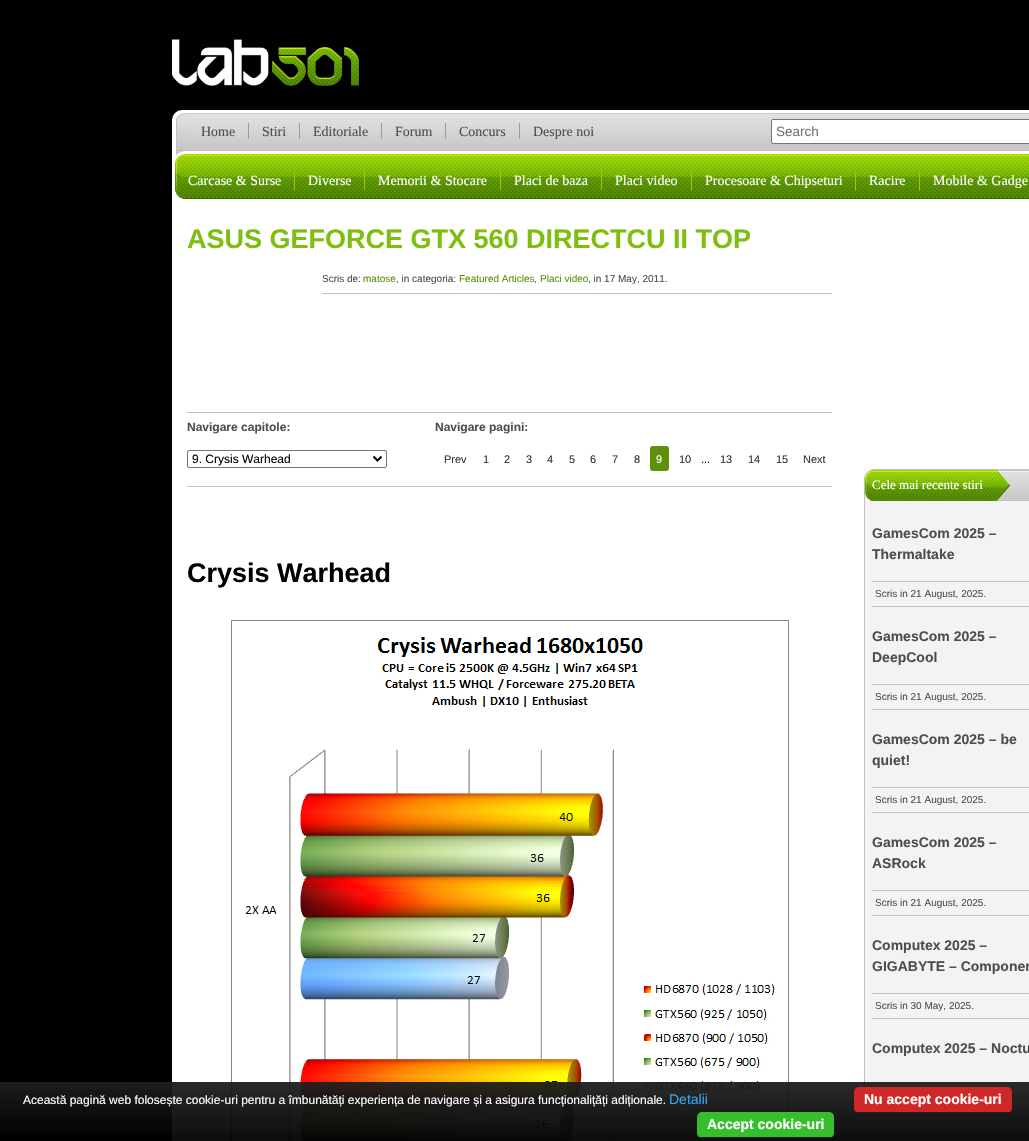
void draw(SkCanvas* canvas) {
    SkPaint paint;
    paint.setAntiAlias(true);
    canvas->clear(0xFF000000);
    canvas->drawImageRect(SkImages::DeferredFromEncodedData(SkData::MakeFromFileName("img1.png")), SkRect::MakeXYWH(172, 39, 187, 47), SkSamplingOptions());
    paint.setColor(0xFFFFFFFF);
    canvas->drawRoundRect(SkRect::MakeXYWH(172, 110, 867, 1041), 10, 10, paint);
    canvas->drawImageRect(SkImages::DeferredFromEncodedData(SkData::MakeFromFileName("img2.png")), SkRect::MakeXYWH(176, 113, 853, 43), SkSamplingOptions());
    paint.setColor(0xFF999999);
    canvas->drawRect(SkRect::MakeXYWH(248, 123, 1, 16), paint);
    SkFont font1(fontMgr->matchFamilyStyle("Liberation Serif", SkFontStyle::Normal()), 14);
    font1.setSubpixel(true);
    paint.setColor(0xFF4E4E4E);
    canvas->drawString("Home", 201, 136, font1, paint);
    paint.setColor(0xFF999999);
    canvas->drawRect(SkRect::MakeXYWH(299, 123, 1, 16), paint);
    paint.setColor(0xFF4E4E4E);
    canvas->drawString("Stiri", 262, 136, font1, paint);
    paint.setColor(0xFF999999);
    canvas->drawRect(SkRect::MakeXYWH(381, 123, 1, 16), paint);
    paint.setColor(0xFF4E4E4E);
    canvas->drawString("Editoriale", 313, 136, font1, paint);
    paint.setColor(0xFF999999);
    canvas->drawRect(SkRect::MakeXYWH(445, 123, 1, 16), paint);
    paint.setColor(0xFF4E4E4E);
    canvas->drawString("Forum", 395, 136, font1, paint);
    paint.setColor(0xFF999999);
    canvas->drawRect(SkRect::MakeXYWH(519, 123, 1, 16), paint);
    paint.setColor(0xFF4E4E4E);
    canvas->drawString("Concurs", 459, 136, font1, paint);
    canvas->drawString("Despre noi", 533, 136, font1, paint);
    paint.setColor(0xFFFFFFFF);
    canvas->drawRoundRect(SkRect::MakeXYWH(771.5f, 119.5f, 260, 24), 1.5f, 1.5f, paint);
    paint.setStyle(SkPaint::kStroke_Style);
    paint.setStrokeWidth(1);
    paint.setColor(0xFF767676);
    canvas->drawRoundRect(SkRect::MakeXYWH(771.5f, 119.5f, 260, 24), 1.5f, 1.5f, paint);
    SkFont font2(fontMgr->matchFamilyStyle("Liberation Sans", SkFontStyle::Normal()), 13.5f);
    font2.setSubpixel(true);
    paint.setStyle(SkPaint::kFill_Style);
    paint.setColor(0xFF757575);
    canvas->drawString("Search", 776, 136, font2, paint);
    canvas->drawImageRect(SkImages::DeferredFromEncodedData(SkData::MakeFromFileName("img3.png")), SkRect::MakeXYWH(175, 154, 854, 45), SkSamplingOptions());
    paint.setColor(0xFF99CC00);
    canvas->drawRect(SkRect::MakeXYWH(294, 170, 1, 20), paint);
    paint.setColor(0xFFFFFFFF);
    canvas->drawString("Carcase & Surse", 188, 185, font1, paint);
    paint.setColor(0xFF99CC00);
    canvas->drawRect(SkRect::MakeXYWH(364, 170, 1, 20), paint);
    paint.setColor(0xFFFFFFFF);
    canvas->drawString("Diverse", 308, 185, font1, paint);
    paint.setColor(0xFF99CC00);
    canvas->drawRect(SkRect::MakeXYWH(500, 170, 1, 20), paint);
    paint.setColor(0xFFFFFFFF);
    canvas->drawString("Memorii & Stocare", 378, 185, font1, paint);
    paint.setColor(0xFF99CC00);
    canvas->drawRect(SkRect::MakeXYWH(601, 170, 1, 20), paint);
    paint.setColor(0xFFFFFFFF);
    canvas->drawString("Placi de baza", 514, 185, font1, paint);
    paint.setColor(0xFF99CC00);
    canvas->drawRect(SkRect::MakeXYWH(691, 170, 1, 20), paint);
    paint.setColor(0xFFFFFFFF);
    canvas->drawString("Placi video", 615, 185, font1, paint);
    paint.setColor(0xFF99CC00);
    canvas->drawRect(SkRect::MakeXYWH(855, 170, 1, 20), paint);
    paint.setColor(0xFFFFFFFF);
    canvas->drawString("Procesoare & Chipseturi", 705, 185, font1, paint);
    paint.setColor(0xFF99CC00);
    canvas->drawRect(SkRect::MakeXYWH(919, 170, 1, 20), paint);
    paint.setColor(0xFFFFFFFF);
    canvas->drawString("Racire", 869, 185, font1, paint);
    canvas->drawString("Mobile & Gadge", 933, 185, font1, paint);
    SkFont font3(fontMgr->matchFamilyStyle("Liberation Sans", SkFontStyle::Bold()), 27);
    font3.setSubpixel(true);
    paint.setColor(0xFF7EBE0F);
    canvas->drawString("ASUS GEFORCE GTX 560 DIRECTCU II TOP", 187, 248, font3, paint);
    paint.setColor(0xFFC0C0C0);
    canvas->drawRect(SkRect::MakeXYWH(322, 293, 510, 1), paint);
    SkFont font4(fontMgr->matchFamilyStyle("Liberation Sans", SkFontStyle::Normal()), 10);
    font4.setSubpixel(true);
    paint.setColor(0xFF4E4E4E);
    canvas->drawString("Scris de:", 322, 282, font4, paint);
    paint.setColor(0xFF5E900C);
    canvas->drawString("matose", 363, 282, font4, paint);
    paint.setColor(0xFF4E4E4E);
    canvas->drawString(", in categoria:", 396, 282, font4, paint);
    paint.setColor(0xFF5E900C);
    canvas->drawString("Featured Articles", 459, 282, font4, paint);
    paint.setColor(0xFF4E4E4E);
    canvas->drawString(",", 534, 282, font4, paint);
    paint.setColor(0xFF5E900C);
    canvas->drawString("Placi video", 540, 282, font4, paint);
    paint.setColor(0xFF4E4E4E);
    canvas->drawString(", in 17 May, 2011.", 588, 282, font4, paint);
    paint.setColor(0xFFC0C0C0);
    canvas->drawRect(SkRect::MakeXYWH(187, 412, 645, 1), paint);
    canvas->drawRect(SkRect::MakeXYWH(187, 486, 645, 1), paint);
    SkFont font5(fontMgr->matchFamilyStyle("Liberation Sans", SkFontStyle::Bold()), 12);
    font5.setSubpixel(true);
    paint.setColor(0xFF4E4E4E);
    canvas->drawString("Navigare capitole:", 187, 431, font5, paint);
    paint.setStyle(SkPaint::kStroke_Style);
    paint.setColor(0xFF767676);
    canvas->drawRoundRect(SkRect::MakeXYWH(187.5f, 450.5f, 199, 17), 1.5f, 1.5f, paint);
    paint.setStrokeWidth(2);
    paint.setColor(0xFF000000);
    canvas->drawPath(SkPathBuilder().moveTo(373.5f, 456.5f).lineTo(377.5f, 460.5f).lineTo(381.5f, 456.5f).detach(), paint);
    SkFont font6(fontMgr->matchFamilyStyle("Liberation Sans", SkFontStyle::Normal()), 12);
    font6.setSubpixel(true);
    paint.setStyle(SkPaint::kFill_Style);
    canvas->drawString("9. Crysis Warhead", 192, 463, font6, paint);
    paint.setColor(0xFF4E4E4E);
    canvas->drawString("Navigare pagini:", 435, 431, font5, paint);
    SkFont font7(fontMgr->matchFamilyStyle("Liberation Sans", SkFontStyle::Normal()), 11);
    font7.setSubpixel(true);
    paint.setColor(0xFF333333);
    canvas->drawString("Prev", 444, 463, font7, paint);
    canvas->drawString("1", 483, 463, font7, paint);
    canvas->drawString("2", 504, 463, font7, paint);
    canvas->drawString("3", 526, 463, font7, paint);
    canvas->drawString("4", 547, 463, font7, paint);
    canvas->drawString("5", 569, 463, font7, paint);
    canvas->drawString("6", 590, 463, font7, paint);
    canvas->drawString("7", 612, 463, font7, paint);
    canvas->drawString("8", 634, 463, font7, paint);
    paint.setColor(0xFF5E900C);
    canvas->drawRoundRect(SkRect::MakeXYWH(650, 446, 19, 25), 3, 3, paint);
    paint.setColor(0xFFFFFFFF);
    canvas->drawString("9", 656, 463, font7, paint);
    paint.setColor(0xFF333333);
    canvas->drawString("10", 679, 463, font7, paint);
    paint.setColor(0xFF000000);
    canvas->drawString("...", 701, 463, font7, paint);
    paint.setColor(0xFF333333);
    canvas->drawString("13", 720, 463, font7, paint);
    canvas->drawString("14", 748, 463, font7, paint);
    canvas->drawString("15", 776, 463, font7, paint);
    canvas->drawString("Next", 803, 463, font7, paint);
    paint.setColor(0xFF000000);
    canvas->drawString("Crysis Warhead", 187, 582, font3, paint);
    canvas->drawImageRect(SkImages::DeferredFromEncodedData(SkData::MakeFromFileName("img4.png")), SkRect::MakeXYWH(231, 620, 558, 521), SkSamplingOptions());
    paint.setColor(0xFFF4F3F3);
    canvas->drawRoundRect(SkRect::MakeXYWH(864.5f, 469.5f, 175, 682), 9.5f, 9.5f, paint);
    paint.setStyle(SkPaint::kStroke_Style);
    paint.setStrokeWidth(1);
    paint.setColor(0xFFC0C0C0);
    canvas->drawRoundRect(SkRect::MakeXYWH(864.5f, 469.5f, 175, 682), 9.5f, 9.5f, paint);
    canvas->drawImageRect(SkImages::DeferredFromEncodedData(SkData::MakeFromFileName("img5.png")), SkRect::MakeXYWH(865, 470, 164, 31), SkSamplingOptions());
    SkFont font8(fontMgr->matchFamilyStyle("Liberation Serif", SkFontStyle::Normal()), 13);
    font8.setSubpixel(true);
    paint.setStyle(SkPaint::kFill_Style);
    paint.setColor(0xFFFFFFFF);
    canvas->drawString("Cele mai recente stiri", 872, 489, font8, paint);
    SkFont font9(fontMgr->matchFamilyStyle("Liberation Sans", SkFontStyle::Bold()), 14);
    font9.setSubpixel(true);
    paint.setColor(0xFF4E4E4E);
    canvas->drawString("GamesCom 2025 –", 872, 538, font9, paint);
    canvas->drawString("Thermaltake", 872, 559, font9, paint);
    paint.setColor(0xFFC0C0C0);
    canvas->drawRect(SkRect::MakeXYWH(872, 581, 157, 1), paint);
    canvas->drawRect(SkRect::MakeXYWH(872, 606, 157, 1), paint);
    paint.setColor(0xFF4E4E4E);
    canvas->drawString("Scris in 21 August, 2025.", 875, 597, font4, paint);
    canvas->drawString("GamesCom 2025 –", 872, 641, font9, paint);
    canvas->drawString("DeepCool", 872, 662, font9, paint);
    paint.setColor(0xFFC0C0C0);
    canvas->drawRect(SkRect::MakeXYWH(872, 684, 157, 1), paint);
    canvas->drawRect(SkRect::MakeXYWH(872, 709, 157, 1), paint);
    paint.setColor(0xFF4E4E4E);
    canvas->drawString("Scris in 21 August, 2025.", 875, 700, font4, paint);
    canvas->drawString("GamesCom 2025 – be", 872, 744, font9, paint);
    canvas->drawString("quiet!", 872, 765, font9, paint);
    paint.setColor(0xFFC0C0C0);
    canvas->drawRect(SkRect::MakeXYWH(872, 787, 157, 1), paint);
    canvas->drawRect(SkRect::MakeXYWH(872, 812, 157, 1), paint);
    paint.setColor(0xFF4E4E4E);
    canvas->drawString("Scris in 21 August, 2025.", 875, 803, font4, paint);
    canvas->drawString("GamesCom 2025 –", 872, 847, font9, paint);
    canvas->drawString("ASRock", 872, 868, font9, paint);
    paint.setColor(0xFFC0C0C0);
    canvas->drawRect(SkRect::MakeXYWH(872, 890, 157, 1), paint);
    canvas->drawRect(SkRect::MakeXYWH(872, 915, 157, 1), paint);
    paint.setColor(0xFF4E4E4E);
    canvas->drawString("Scris in 21 August, 2025.", 875, 906, font4, paint);
    canvas->drawString("Computex 2025 –", 872, 950, font9, paint);
    canvas->drawString("GIGABYTE – Componen", 872, 971, font9, paint);
    paint.setColor(0xFFC0C0C0);
    canvas->drawRect(SkRect::MakeXYWH(872, 993, 157, 1), paint);
    canvas->drawRect(SkRect::MakeXYWH(872, 1018, 157, 1), paint);
    paint.setColor(0xFF4E4E4E);
    canvas->drawString("Scris in 30 May, 2025.", 875, 1009, font4, paint);
    canvas->drawString("Computex 2025 – Noctu", 872, 1053, font9, paint);
    paint.setColor(0xFFC0C0C0);
    canvas->drawRect(SkRect::MakeXYWH(1012, 1096, 17, 1), paint);
    canvas->drawRect(SkRect::MakeXYWH(872, 1121, 157, 1), paint);
    {
        const SkColor colors[] = {0xF21E1E1E, 0xF2000000};
        const float stops[] = {0, 1};
        const SkPoint ends[] = {{518, 1082}, {518, 1141}};
        paint.setShader(SkGradientShader::MakeLinear(ends, colors, stops, 2, SkTileMode::kClamp));
        paint.setAlpha(255);
    }
    canvas->drawRect(SkRect::MakeXYWH(0, 1082, 1029, 59), paint);
    paint.setShader(nullptr);
    paint.setColor(0xFFFFFFFF);
    canvas->drawString("Această pagină web folosește cookie-uri pentru a îmbunătăți experiența de navigare și a asigura funcționalițăți adiționale.", 23, 1104, font6, paint);
    SkFont font10(fontMgr->matchFamilyStyle("Liberation Sans", SkFontStyle::Normal()), 14);
    font10.setSubpixel(true);
    paint.setColor(0xFF31A8F0);
    canvas->drawString("Detalii", 669, 1104, font10, paint);
    paint.setColor(0xFFD02828);
    canvas->drawRoundRect(SkRect::MakeXYWH(854, 1087, 158, 26), 5, 5, paint);
    paint.setColor(0xFF222222);
    canvas->drawRect(SkRect::MakeXYWH(857, 1112, 153, 1), paint);
    paint.setColor(0xFFFFFFFF);
    canvas->drawString("Nu accept cookie-uri", 864, 1104, font9, paint);
    paint.setColor(0xFF36BF2D);
    canvas->drawRoundRect(SkRect::MakeXYWH(697, 1112, 137, 26), 5, 5, paint);
    paint.setColor(0xFF222222);
    canvas->drawRect(SkRect::MakeXYWH(700, 1137, 132, 1), paint);
    paint.setColor(0xFFFFFFFF);
    canvas->drawString("Accept cookie-uri", 707, 1129, font9, paint);
}
